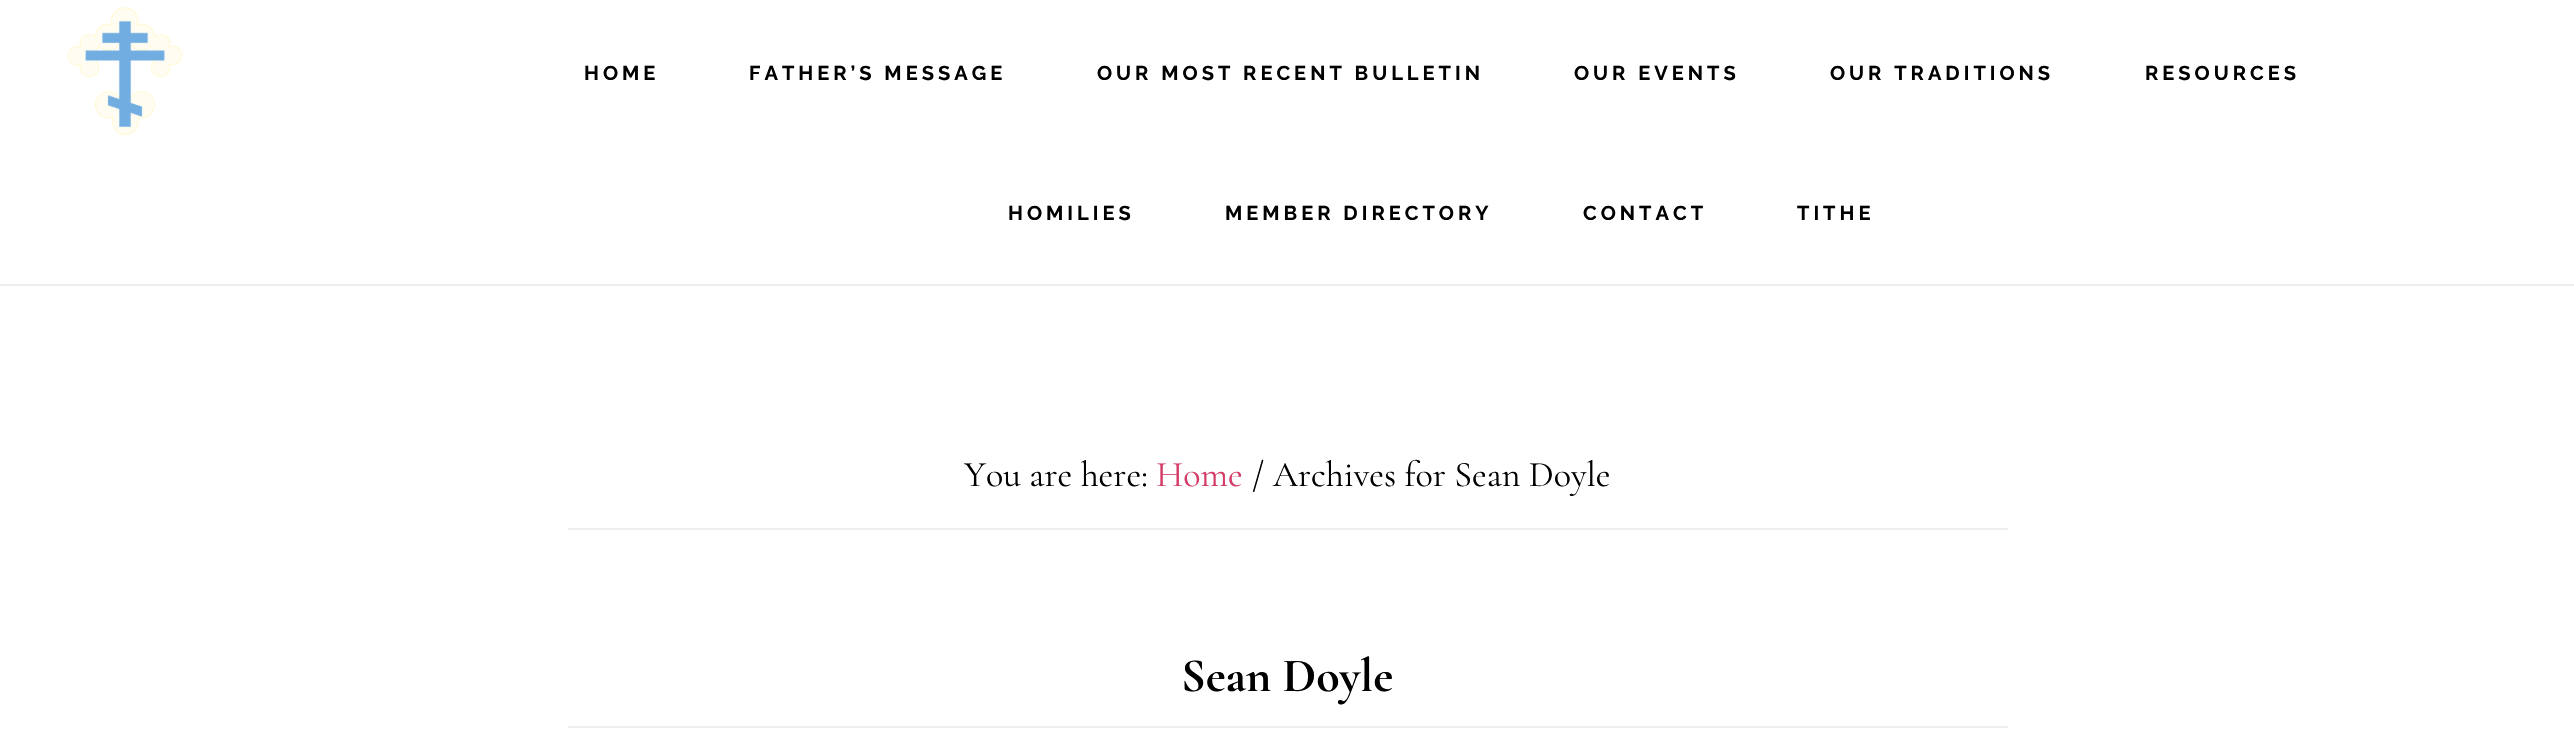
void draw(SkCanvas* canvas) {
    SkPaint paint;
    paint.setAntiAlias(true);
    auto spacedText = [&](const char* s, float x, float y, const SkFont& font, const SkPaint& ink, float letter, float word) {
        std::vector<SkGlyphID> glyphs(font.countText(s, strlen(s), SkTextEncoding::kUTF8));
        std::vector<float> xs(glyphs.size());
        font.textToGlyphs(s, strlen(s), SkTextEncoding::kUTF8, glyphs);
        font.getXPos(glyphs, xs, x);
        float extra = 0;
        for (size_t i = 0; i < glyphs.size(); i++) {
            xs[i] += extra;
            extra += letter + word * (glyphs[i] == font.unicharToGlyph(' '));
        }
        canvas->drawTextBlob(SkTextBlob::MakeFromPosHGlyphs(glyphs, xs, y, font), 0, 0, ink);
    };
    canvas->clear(0xFFFFFFFF);
    paint.setColor(0xFFEEEEEE);
    canvas->drawRect(SkRect::MakeXYWH(0, 284, 2574, 2), paint);
    canvas->drawImageRect(SkImages::DeferredFromEncodedData(SkData::MakeFromFileName("img1.png")), SkRect::MakeXYWH(67, 7, 116, 129), SkSamplingOptions());
    SkFont font1(fontMgr->matchFamilyStyle("Raleway", SkFontStyle(100, SkFontStyle::kNormal_Width, SkFontStyle::kUpright_Slant)), 20);
    font1.setSubpixel(true);
    paint.setColor(0xFF000000);
    spacedText("HOME", 584, 80, font1, paint, 4, 0);
    spacedText("FATHER’S MESSAGE", 749, 80, font1, paint, 4, 0);
    spacedText("OUR MOST RECENT BULLETIN", 1097, 80, font1, paint, 4, 0);
    spacedText("OUR EVENTS", 1574, 80, font1, paint, 4, 0);
    spacedText("OUR TRADITIONS", 1830, 80, font1, paint, 4, 0);
    spacedText("RESOURCES", 2145, 80, font1, paint, 4, 0);
    spacedText("HOMILIES", 1008, 220, font1, paint, 4, 0);
    spacedText("MEMBER DIRECTORY", 1225, 220, font1, paint, 4, 0);
    spacedText("CONTACT", 1583, 220, font1, paint, 4, 0);
    spacedText("TITHE", 1797, 220, font1, paint, 4, 0);
    paint.setColor(0xFFEEEEEE);
    canvas->drawRect(SkRect::MakeXYWH(568, 528, 1440, 2), paint);
    SkFont font2(fontMgr->matchFamilyStyle("Cormorant Garamond", SkFontStyle::Normal()), 36);
    font2.setSubpixel(true);
    paint.setColor(0xFF000000);
    canvas->drawString("You are here:", 964, 486, font2, paint);
    paint.setColor(0xFFD43C67);
    canvas->drawString("Home", 1156, 486, font2, paint);
    paint.setColor(0xFF000000);
    canvas->drawString("/ Archives for Sean Doyle", 1252, 486, font2, paint);
    paint.setColor(0xFFEEEEEE);
    canvas->drawRect(SkRect::MakeXYWH(568, 726, 1440, 2), paint);
    SkFont font3(fontMgr->matchFamilyStyle("Cormorant Garamond", SkFontStyle::Bold()), 48);
    font3.setSubpixel(true);
    paint.setColor(0xFF000000);
    canvas->drawString("Sean Doyle", 1181, 691, font3, paint);
}
